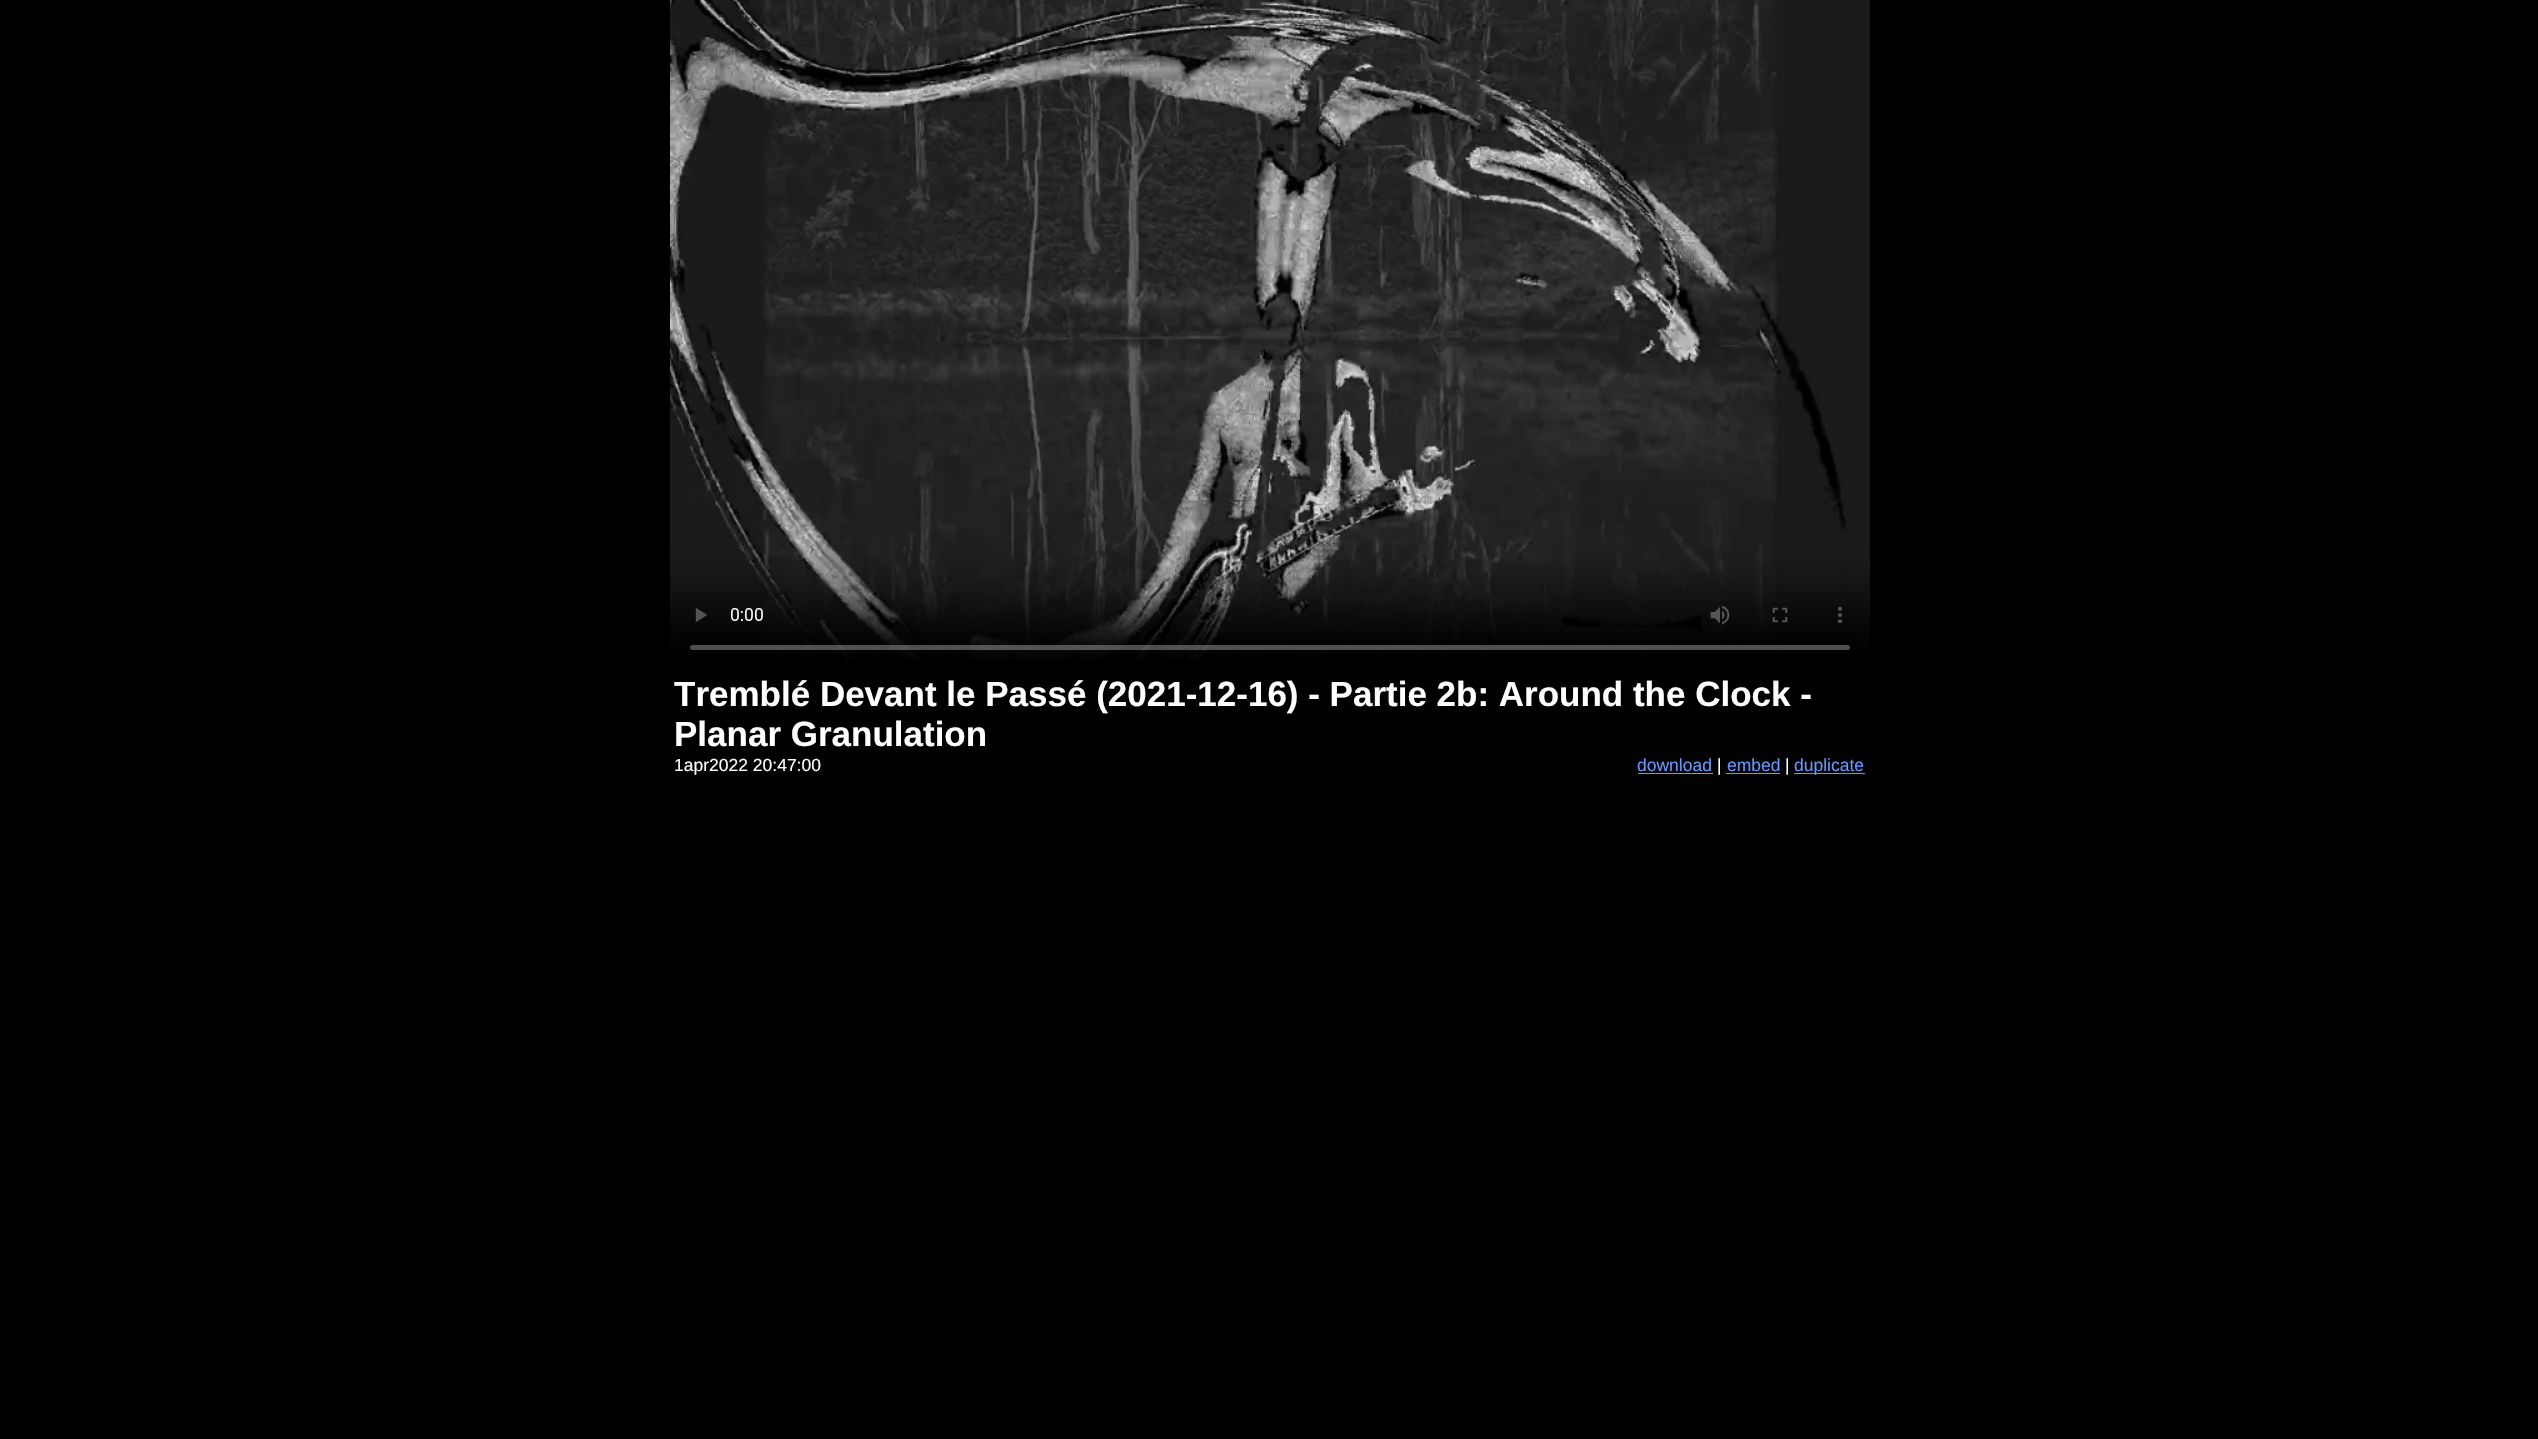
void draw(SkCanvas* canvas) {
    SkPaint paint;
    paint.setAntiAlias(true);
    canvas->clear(0xFF000000);
    canvas->drawImageRect(SkImages::DeferredFromEncodedData(SkData::MakeFromFileName("img1.png")), SkRect::MakeXYWH(670, 0, 1200, 660), SkSamplingOptions());
    SkFont font1(fontMgr->matchFamilyStyle("Liberation Sans", SkFontStyle::Bold()), 35);
    font1.setSubpixel(true);
    paint.setColor(0xFFFFFFFF);
    canvas->drawString("Tremblé Devant le Passé (2021-12-16) - Partie 2b: Around the Clock -", 674, 706, font1, paint);
    canvas->drawString("Planar Granulation", 674, 746, font1, paint);
    SkFont font2(fontMgr->matchFamilyStyle("Liberation Sans", SkFontStyle::Normal()), 17.5f);
    font2.setSubpixel(true);
    canvas->drawString("1apr2022 20:47:00", 674, 771, font2, paint);
    paint.setColor(0xFF6699FF);
    canvas->drawString("download", 1637, 771, font2, paint);
    canvas->drawRect(SkRect::MakeXYWH(1638, 773, 75, 1), paint);
    paint.setColor(0xFFFFFFFF);
    canvas->drawString("|", 1717, 771, font2, paint);
    paint.setColor(0xFF6699FF);
    canvas->drawString("embed", 1727, 771, font2, paint);
    canvas->drawRect(SkRect::MakeXYWH(1726, 773, 54, 1), paint);
    paint.setColor(0xFFFFFFFF);
    canvas->drawString("|", 1785, 771, font2, paint);
    paint.setColor(0xFF6699FF);
    canvas->drawRect(SkRect::MakeXYWH(1794, 773, 71, 1), paint);
    canvas->drawString("duplicate", 1794, 771, font2, paint);
}
